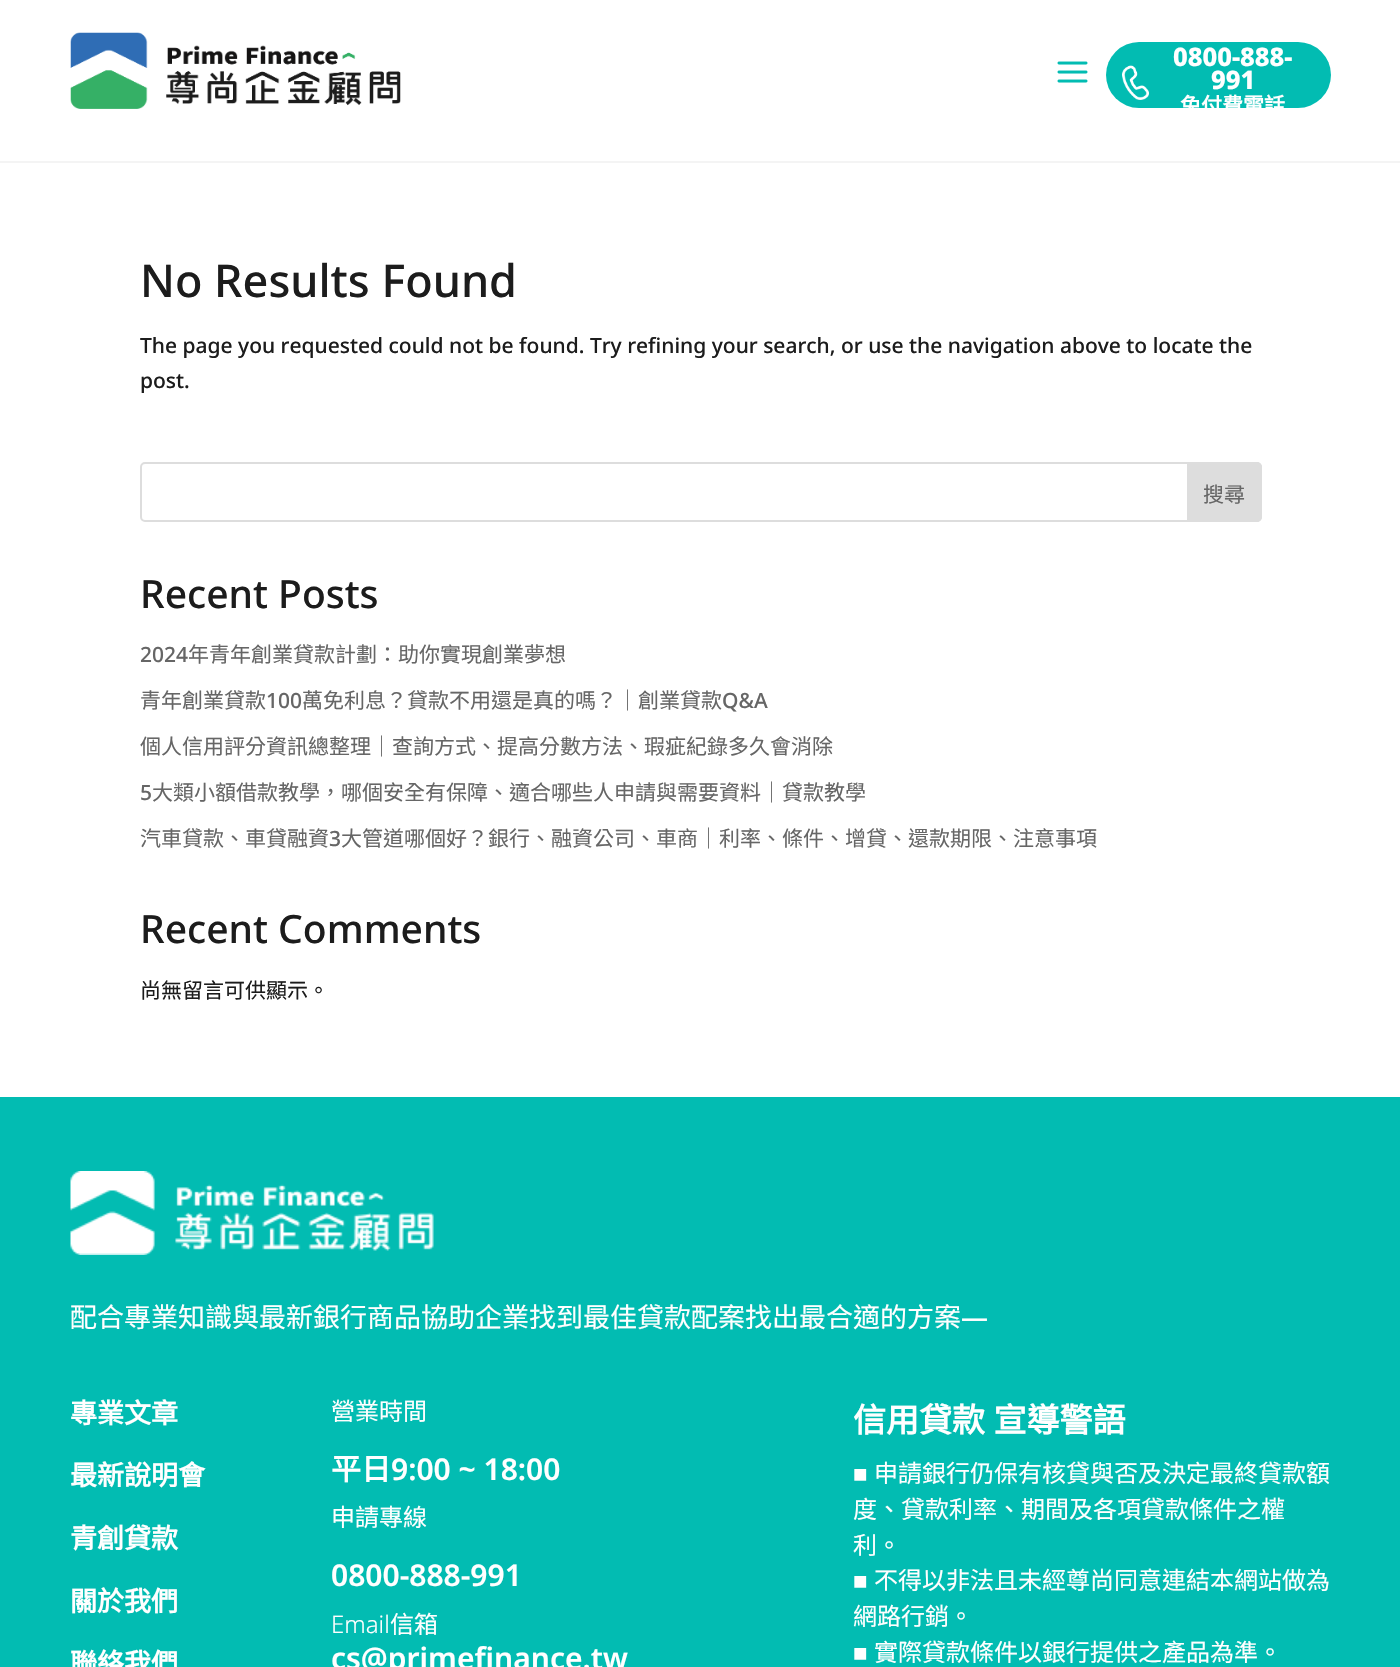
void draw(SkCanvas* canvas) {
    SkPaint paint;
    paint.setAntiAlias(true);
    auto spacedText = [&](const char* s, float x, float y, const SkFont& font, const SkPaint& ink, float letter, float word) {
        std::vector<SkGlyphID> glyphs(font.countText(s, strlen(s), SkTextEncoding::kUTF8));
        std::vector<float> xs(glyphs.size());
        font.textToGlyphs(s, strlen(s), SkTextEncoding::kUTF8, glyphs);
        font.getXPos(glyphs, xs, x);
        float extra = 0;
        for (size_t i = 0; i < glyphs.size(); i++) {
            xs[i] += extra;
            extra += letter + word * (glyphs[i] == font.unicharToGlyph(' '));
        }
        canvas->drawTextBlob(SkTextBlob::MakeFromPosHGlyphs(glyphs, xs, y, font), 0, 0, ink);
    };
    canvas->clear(0xFFFFFFFF);
    paint.setColor(0xFFF4F4F4);
    canvas->drawRect(SkRect::MakeXYWH(0, 161, 1400, 2), paint);
    canvas->drawImageRect(SkImages::DeferredFromEncodedData(SkData::MakeFromFileName("img1.png")), SkRect::MakeXYWH(70, 32, 331, 77), SkSamplingOptions());
    canvas->drawImageRect(SkImages::DeferredFromEncodedData(SkData::MakeFromFileName("img2.png")), SkRect::MakeXYWH(1057, 61, 31, 22), SkSamplingOptions());
    paint.setColor(0xFF02BCB2);
    canvas->drawRoundRect(SkRect::MakeXYWH(1106, 42, 225, 66), 33, 33, paint);
    canvas->drawImageRect(SkImages::DeferredFromEncodedData(SkData::MakeFromFileName("img3.png")), SkRect::MakeXYWH(1122, 65, 27, 35), SkSamplingOptions());
    SkFont font1(fontMgr->matchFamilyStyle("Noto Sans", SkFontStyle(800, SkFontStyle::kNormal_Width, SkFontStyle::kUpright_Slant)), 25.5f);
    font1.setSubpixel(true);
    paint.setColor(0xFFFFFFFF);
    canvas->drawString("0800-888-", 1173, 66, font1, paint);
    canvas->drawString("991", 1211, 89, font1, paint);
    canvas->save();
    canvas->clipPath(SkPathBuilder().moveTo(1139, 42).lineTo(1298, 42).cubicTo(1316, 42, 1331, 57, 1331, 75).cubicTo(1331, 93, 1316, 108, 1298, 108).lineTo(1139, 108).cubicTo(1121, 108, 1106, 93, 1106, 75).cubicTo(1106, 57, 1121, 42, 1139, 42).close().detach(), true);
    SkFont font2(fontMgr->matchFamilyStyle("Noto Sans CJK TC", SkFontStyle::Bold()), 21);
    font2.setSubpixel(true);
    canvas->drawString("免付費電話", 1180, 113, font2, paint);
    canvas->restore();
    SkFont font3(fontMgr->matchFamilyStyle("Noto Sans", SkFontStyle(500, SkFontStyle::kNormal_Width, SkFontStyle::kUpright_Slant)), 45);
    font3.setSubpixel(true);
    paint.setColor(0xFF1C1C1C);
    canvas->drawString("No Results Found", 140, 297, font3, paint);
    SkFont font4(fontMgr->matchFamilyStyle("Noto Sans", SkFontStyle(500, SkFontStyle::kNormal_Width, SkFontStyle::kUpright_Slant)), 21);
    font4.setSubpixel(true);
    canvas->drawString("The page you requested could not be found. Try refining your search, or use the navigation above to locate the", 140, 353, font4, paint);
    canvas->drawString("post.", 140, 388, font4, paint);
    paint.setStyle(SkPaint::kStroke_Style);
    paint.setStrokeWidth(2);
    paint.setColor(0xFFDDDDDD);
    canvas->drawRoundRect(SkRect::MakeXYWH(141, 463, 1120, 58), 4, 4, paint);
    paint.setStyle(SkPaint::kFill_Style);
    canvas->drawPath(SkPathBuilder().moveTo(1188, 463).lineTo(1257, 463).cubicTo(1259, 463, 1261, 465, 1261, 467).lineTo(1261, 517).cubicTo(1261, 519, 1259, 521, 1257, 521).lineTo(1188, 521).close().detach(), paint);
    paint.setStyle(SkPaint::kStroke_Style);
    canvas->drawPath(SkPathBuilder().moveTo(1188, 463).lineTo(1257, 463).cubicTo(1259, 463, 1261, 465, 1261, 467).lineTo(1261, 517).cubicTo(1261, 519, 1259, 521, 1257, 521).lineTo(1188, 521).close().detach(), paint);
    SkFont font5(fontMgr->matchFamilyStyle("Noto Sans CJK TC", SkFontStyle::Normal()), 21);
    font5.setSubpixel(true);
    paint.setStyle(SkPaint::kFill_Style);
    paint.setColor(0xFF666666);
    canvas->drawString("搜尋", 1203, 502, font5, paint);
    SkFont font6(fontMgr->matchFamilyStyle("Noto Sans", SkFontStyle(500, SkFontStyle::kNormal_Width, SkFontStyle::kUpright_Slant)), 39);
    font6.setSubpixel(true);
    paint.setColor(0xFF1C1C1C);
    canvas->drawString("Recent Posts", 140, 608, font6, paint);
    paint.setColor(0xFF666666);
    canvas->drawString("2024", 140, 662, font4, paint);
    canvas->drawString("年青年創業貸款計劃：助你實現創業夢想", 188, 662, font5, paint);
    canvas->drawString("青年創業貸款", 140, 708, font5, paint);
    canvas->drawString("100", 266, 708, font4, paint);
    canvas->drawString("萬免利息？貸款不用還是真的嗎？｜創業貸款", 302, 708, font5, paint);
    canvas->drawString("Q&A", 722, 708, font4, paint);
    canvas->drawString("個人信用評分資訊總整理｜查詢方式、提高分數方法、瑕疵紀錄多久會消除", 140, 754, font5, paint);
    canvas->drawString("5", 140, 800, font4, paint);
    canvas->drawString("大類小額借款教學，哪個安全有保障、適合哪些人申請與需要資料｜貸款教學", 152, 800, font5, paint);
    canvas->drawString("汽車貸款、車貸融資", 140, 846, font5, paint);
    canvas->drawString("3", 329, 846, font4, paint);
    canvas->drawString("大管道哪個好？銀行、融資公司、車商｜利率、條件、增貸、還款期限、注意事項", 341, 846, font5, paint);
    paint.setColor(0xFF1C1C1C);
    canvas->drawString("Recent Comments", 140, 943, font6, paint);
    canvas->drawString("尚無留言可供顯示。", 140, 998, font5, paint);
    paint.setColor(0xFF02BCB2);
    canvas->drawRect(SkRect::MakeXYWH(0, 1097, 1400, 570), paint);
    canvas->drawImageRect(SkImages::DeferredFromEncodedData(SkData::MakeFromFileName("img4.png")), SkRect::MakeXYWH(70, 1171, 364, 84), SkSamplingOptions());
    SkFont font7(fontMgr->matchFamilyStyle("Noto Sans CJK TC", SkFontStyle::Normal()), 27);
    font7.setSubpixel(true);
    paint.setColor(0xFFFFFFFF);
    canvas->drawString("配合專業知識與最新銀行商品協助企業找到最佳貸款配案找出最合適的方案", 70, 1327, font7, paint);
    SkFont font8(fontMgr->matchFamilyStyle("Noto Sans", SkFontStyle(500, SkFontStyle::kNormal_Width, SkFontStyle::kUpright_Slant)), 27);
    font8.setSubpixel(true);
    canvas->drawString("—", 961, 1327, font8, paint);
    SkFont font9(fontMgr->matchFamilyStyle("Noto Sans CJK TC", SkFontStyle::Bold()), 27);
    font9.setSubpixel(true);
    canvas->drawString("專業文章", 70, 1423, font9, paint);
    canvas->drawString("最新說明會", 70, 1485, font9, paint);
    canvas->drawString("青創貸款", 70, 1548, font9, paint);
    canvas->drawString("關於我們", 70, 1611, font9, paint);
    canvas->drawString("聯絡我們", 70, 1673, font9, paint);
    SkFont font10(fontMgr->matchFamilyStyle("Noto Sans CJK TC", SkFontStyle::Normal()), 24);
    font10.setSubpixel(true);
    canvas->drawString("營業時間", 331, 1420, font10, paint);
    SkFont font11(fontMgr->matchFamilyStyle("Noto Sans CJK TC", SkFontStyle::Bold()), 30);
    font11.setSubpixel(true);
    canvas->drawString("平日", 331, 1480, font11, paint);
    SkFont font12(fontMgr->matchFamilyStyle("Noto Sans", SkFontStyle(600, SkFontStyle::kNormal_Width, SkFontStyle::kUpright_Slant)), 30);
    font12.setSubpixel(true);
    canvas->drawString("9:00 ~ 18:00", 391, 1480, font12, paint);
    canvas->drawString("申請專線", 331, 1526, font10, paint);
    canvas->drawString("0800-888-991", 331, 1586, font12, paint);
    SkFont font13(fontMgr->matchFamilyStyle("Noto Sans", SkFontStyle(300, SkFontStyle::kNormal_Width, SkFontStyle::kUpright_Slant)), 24);
    font13.setSubpixel(true);
    canvas->drawString("Email", 331, 1633, font13, paint);
    canvas->drawString("信箱", 390, 1633, font10, paint);
    canvas->drawString("cs@primefinance.tw", 331, 1669, font12, paint);
    SkFont font14(fontMgr->matchFamilyStyle("Noto Sans CJK TC", SkFontStyle::Bold()), 33);
    font14.setSubpixel(true);
    spacedText("信用貸款 宣導警語", 853, 1432, font14, paint, 0, 1);
    SkFont font15(fontMgr->matchFamilyStyle("Liberation Sans", SkFontStyle::Normal()), 24);
    font15.setSubpixel(true);
    canvas->drawString("■", 853, 1482, font15, paint);
    canvas->drawString("申請銀行仍保有核貸與否及決定最終貸款額", 874, 1482, font10, paint);
    canvas->drawString("度、貸款利率、期間及各項貸款條件之權", 853, 1518, font10, paint);
    canvas->drawString("利。", 853, 1554, font10, paint);
    canvas->drawString("■", 853, 1589, font15, paint);
    canvas->drawString("不得以非法且未經尊尚同意連結本網站做為", 874, 1589, font10, paint);
    canvas->drawString("網路行銷。", 853, 1625, font10, paint);
    canvas->drawString("■", 853, 1661, font15, paint);
    canvas->drawString("實際貸款條件以銀行提供之產品為準。", 874, 1661, font10, paint);
}
